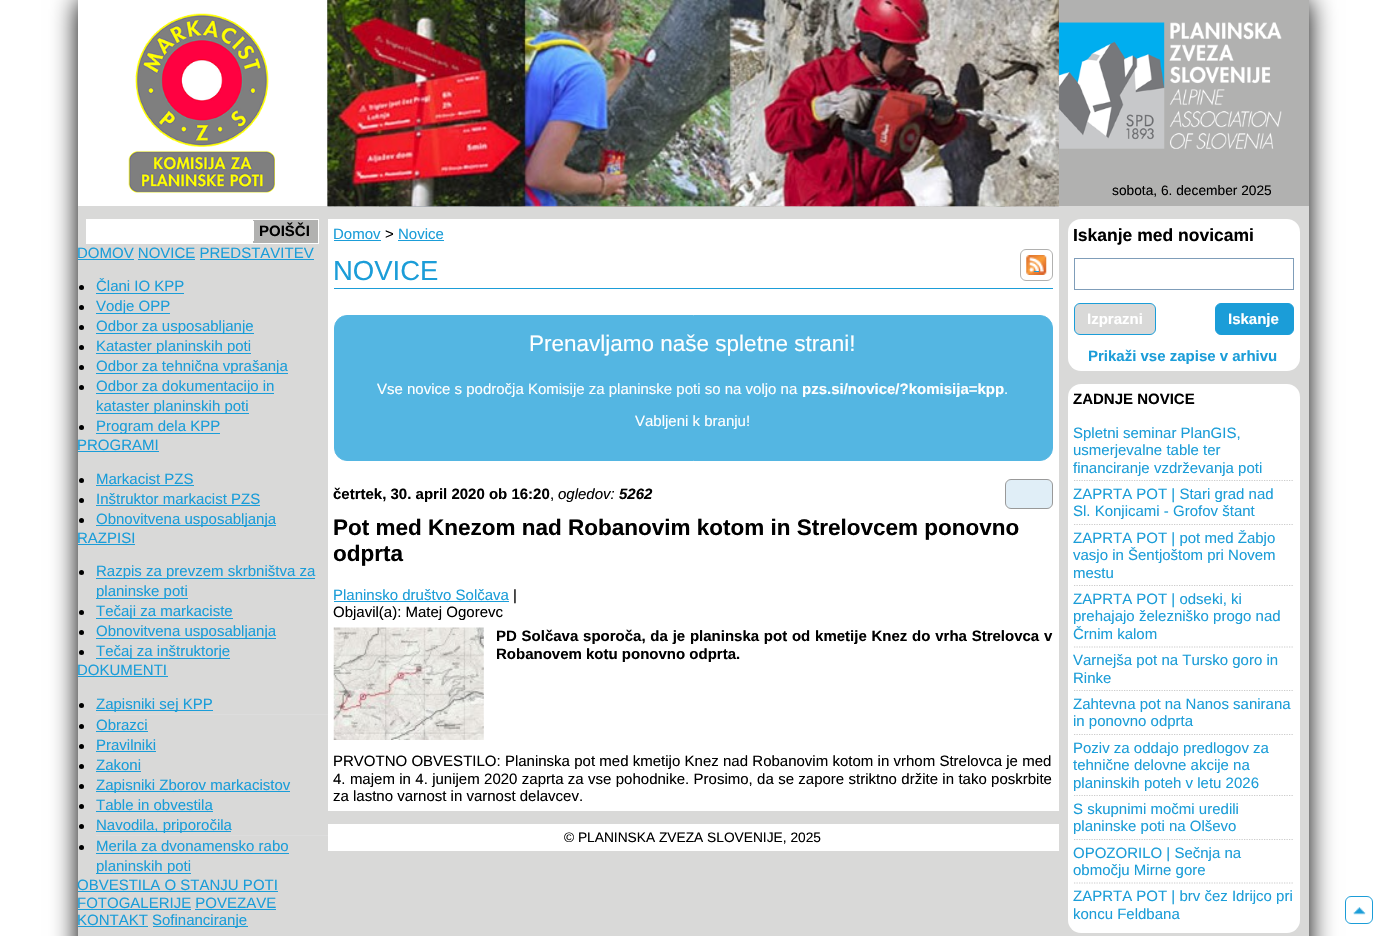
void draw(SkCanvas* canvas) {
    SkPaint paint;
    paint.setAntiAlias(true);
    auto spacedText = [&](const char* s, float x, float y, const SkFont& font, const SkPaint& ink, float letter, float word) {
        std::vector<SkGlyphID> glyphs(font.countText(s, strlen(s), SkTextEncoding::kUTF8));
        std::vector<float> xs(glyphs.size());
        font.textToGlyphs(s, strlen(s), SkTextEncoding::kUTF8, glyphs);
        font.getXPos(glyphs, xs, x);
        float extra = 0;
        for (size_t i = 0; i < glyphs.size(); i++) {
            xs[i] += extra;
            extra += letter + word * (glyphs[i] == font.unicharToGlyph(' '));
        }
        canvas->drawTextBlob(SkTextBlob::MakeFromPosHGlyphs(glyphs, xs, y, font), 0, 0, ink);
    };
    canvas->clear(0xFFFFFFFF);
    canvas->drawImageRect(SkImages::DeferredFromEncodedData(SkData::MakeFromFileName("img7.png")), SkRect::MakeXYWH(1353, 907, 13, 8), SkSamplingOptions());
    paint.setStyle(SkPaint::kStroke_Style);
    paint.setStrokeWidth(1);
    paint.setColor(0xFF1B9DD8);
    canvas->drawRoundRect(SkRect::MakeXYWH(1345.5f, 896.5f, 27, 27), 5.5f, 5.5f, paint);
    paint.setStyle(SkPaint::kFill_Style);
    paint.setColor(0xFF000000);
    paint.setMaskFilter(SkMaskFilter::MakeBlur(kNormal_SkBlurStyle, 12.5f));
    canvas->drawRect(SkRect::MakeXYWH(78, 0, 1231, 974), paint);
    paint.setMaskFilter(nullptr);
    paint.setColor(0xFFD9D9D8);
    canvas->drawRect(SkRect::MakeXYWH(78, 0, 1231, 936), paint);
    paint.setColor(0xFFFFFFFF);
    canvas->drawRect(SkRect::MakeXYWH(78, 0, 250, 206), paint);
    canvas->drawImageRect(SkImages::DeferredFromEncodedData(SkData::MakeFromFileName("img1.png")), SkRect::MakeXYWH(128, 13, 147, 180), SkSamplingOptions());
    canvas->drawImageRect(SkImages::DeferredFromEncodedData(SkData::MakeFromFileName("img2.png")), SkRect::MakeXYWH(327, 0, 732, 207), SkSamplingOptions());
    paint.setColor(0xFFB1B1B0);
    canvas->drawRect(SkRect::MakeXYWH(1059, 0, 250, 206), paint);
    canvas->drawImageRect(SkImages::DeferredFromEncodedData(SkData::MakeFromFileName("img4.png")), SkRect::MakeXYWH(1058, 22, 224, 127), SkSamplingOptions());
    canvas->drawImageRect(SkImages::DeferredFromEncodedData(SkData::MakeFromFileName("img3.png")), SkRect::MakeXYWH(327, 0, 732, 207), SkSamplingOptions());
    SkFont font1(fontMgr->matchFamilyStyle("Liberation Sans", SkFontStyle::Normal()), 13.75f);
    font1.setSubpixel(true);
    paint.setColor(0xFF000000);
    canvas->drawString("sobota, 6. december 2025", 1112, 195, font1, paint);
    paint.setColor(0xFFFFFFFF);
    canvas->drawRect(SkRect::MakeXYWH(86, 219, 233, 25), paint);
    paint.setColor(0xFFB1B1B0);
    canvas->drawRect(SkRect::MakeXYWH(253, 220, 65, 23), paint);
    paint.setColor(0xFFFFFFFF);
    canvas->drawRect(SkRect::MakeXYWH(253, 221, 1, 20), paint);
    SkFont font2(fontMgr->matchFamilyStyle("Liberation Sans", SkFontStyle::Bold()), 15);
    font2.setSubpixel(true);
    paint.setColor(0xFF000000);
    canvas->drawString("POIŠČI", 259, 236, font2, paint);
    SkFont font3(fontMgr->matchFamilyStyle("Liberation Sans", SkFontStyle::Normal()), 15);
    font3.setSubpixel(true);
    paint.setColor(0xFF1B9DD8);
    canvas->drawString("DOMOV NOVICE PREDSTAVITEV", 77, 258, font3, paint);
    canvas->drawRect(SkRect::MakeXYWH(78, 259, 56, 1), paint);
    canvas->drawRect(SkRect::MakeXYWH(138, 259, 57, 1), paint);
    canvas->drawRect(SkRect::MakeXYWH(200, 259, 114, 1), paint);
    paint.setColor(0xFF000000);
    canvas->drawCircle(81.5f, 287.5f, 2.5f, paint);
    paint.setColor(0xFF1B9DD8);
    canvas->drawString("Člani IO KPP", 96, 291, font3, paint);
    canvas->drawRect(SkRect::MakeXYWH(96, 293, 88, 1), paint);
    paint.setColor(0xFF000000);
    canvas->drawCircle(81.5f, 307.5f, 2.5f, paint);
    paint.setColor(0xFF1B9DD8);
    canvas->drawRect(SkRect::MakeXYWH(96, 313, 74, 1), paint);
    canvas->drawString("Vodje OPP", 96, 311, font3, paint);
    paint.setColor(0xFF000000);
    canvas->drawCircle(81.5f, 327.5f, 2.5f, paint);
    paint.setColor(0xFF1B9DD8);
    canvas->drawRect(SkRect::MakeXYWH(96, 333, 158, 1), paint);
    canvas->drawString("Odbor za usposabljanje", 96, 331, font3, paint);
    paint.setColor(0xFF000000);
    canvas->drawCircle(81.5f, 347.5f, 2.5f, paint);
    paint.setColor(0xFF1B9DD8);
    canvas->drawRect(SkRect::MakeXYWH(96, 353, 155, 1), paint);
    canvas->drawString("Kataster planinskih poti", 96, 351, font3, paint);
    paint.setColor(0xFF000000);
    canvas->drawCircle(81.5f, 367.5f, 2.5f, paint);
    paint.setColor(0xFF1B9DD8);
    canvas->drawRect(SkRect::MakeXYWH(96, 373, 192, 1), paint);
    canvas->drawString("Odbor za tehnična vprašanja", 96, 371, font3, paint);
    paint.setColor(0xFF000000);
    canvas->drawCircle(81.5f, 387.5f, 2.5f, paint);
    paint.setColor(0xFF1B9DD8);
    canvas->drawRect(SkRect::MakeXYWH(96, 393, 178, 1), paint);
    canvas->drawString("Odbor za dokumentacijo in", 96, 391, font3, paint);
    canvas->drawRect(SkRect::MakeXYWH(96, 413, 153, 1), paint);
    canvas->drawString("kataster planinskih poti", 96, 411, font3, paint);
    paint.setColor(0xFF000000);
    canvas->drawCircle(81.5f, 427.5f, 2.5f, paint);
    paint.setColor(0xFF1B9DD8);
    canvas->drawRect(SkRect::MakeXYWH(96, 433, 124, 1), paint);
    canvas->drawString("Program dela KPP", 96, 431, font3, paint);
    canvas->drawString("PROGRAMI", 77, 450, font3, paint);
    canvas->drawRect(SkRect::MakeXYWH(78, 451, 81, 1), paint);
    paint.setColor(0xFF000000);
    canvas->drawCircle(81.5f, 480.5f, 2.5f, paint);
    paint.setColor(0xFF1B9DD8);
    canvas->drawString("Markacist PZS", 96, 484, font3, paint);
    canvas->drawRect(SkRect::MakeXYWH(96, 485, 98, 1), paint);
    paint.setColor(0xFF000000);
    canvas->drawCircle(81.5f, 500.5f, 2.5f, paint);
    paint.setColor(0xFF1B9DD8);
    canvas->drawString("Inštruktor markacist PZS", 96, 504, font3, paint);
    canvas->drawRect(SkRect::MakeXYWH(96, 505, 164, 1), paint);
    paint.setColor(0xFF000000);
    canvas->drawCircle(81.5f, 520.5f, 2.5f, paint);
    paint.setColor(0xFF1B9DD8);
    canvas->drawRect(SkRect::MakeXYWH(96, 525, 180, 1), paint);
    canvas->drawString("Obnovitvena usposabljanja", 96, 524, font3, paint);
    canvas->drawString("RAZPISI", 77, 543, font3, paint);
    canvas->drawRect(SkRect::MakeXYWH(78, 544, 57, 1), paint);
    paint.setColor(0xFF000000);
    canvas->drawCircle(81.5f, 572.5f, 2.5f, paint);
    paint.setColor(0xFF1B9DD8);
    canvas->drawRect(SkRect::MakeXYWH(96, 578, 219, 1), paint);
    canvas->drawString("Razpis za prevzem skrbništva za", 96, 576, font3, paint);
    canvas->drawRect(SkRect::MakeXYWH(96, 598, 92, 1), paint);
    canvas->drawString("planinske poti", 96, 596, font3, paint);
    paint.setColor(0xFF000000);
    canvas->drawCircle(81.5f, 612.5f, 2.5f, paint);
    paint.setColor(0xFF1B9DD8);
    canvas->drawRect(SkRect::MakeXYWH(96, 618, 137, 1), paint);
    canvas->drawString("Tečaji za markaciste", 96, 616, font3, paint);
    paint.setColor(0xFF000000);
    canvas->drawCircle(81.5f, 632.5f, 2.5f, paint);
    paint.setColor(0xFF1B9DD8);
    canvas->drawRect(SkRect::MakeXYWH(96, 638, 180, 1), paint);
    canvas->drawString("Obnovitvena usposabljanja", 96, 636, font3, paint);
    paint.setColor(0xFF000000);
    canvas->drawCircle(81.5f, 652.5f, 2.5f, paint);
    paint.setColor(0xFF1B9DD8);
    canvas->drawRect(SkRect::MakeXYWH(96, 658, 134, 1), paint);
    canvas->drawString("Tečaj za inštruktorje", 96, 656, font3, paint);
    canvas->drawString("DOKUMENTI", 77, 675, font3, paint);
    canvas->drawRect(SkRect::MakeXYWH(78, 676, 90, 1), paint);
    paint.setColor(0xFFDDDDDD);
    canvas->drawRect(SkRect::MakeXYWH(96, 714, 232, 1), paint);
    paint.setColor(0xFF000000);
    canvas->drawCircle(81.5f, 705.5f, 2.5f, paint);
    paint.setColor(0xFF1B9DD8);
    canvas->drawRect(SkRect::MakeXYWH(96, 710, 117, 1), paint);
    canvas->drawString("Zapisniki sej KPP", 96, 709, font3, paint);
    paint.setColor(0xFF000000);
    canvas->drawCircle(81.5f, 726.5f, 2.5f, paint);
    paint.setColor(0xFF1B9DD8);
    canvas->drawString("Obrazci", 96, 730, font3, paint);
    canvas->drawRect(SkRect::MakeXYWH(96, 731, 52, 1), paint);
    paint.setColor(0xFF000000);
    canvas->drawCircle(81.5f, 746.5f, 2.5f, paint);
    paint.setColor(0xFF1B9DD8);
    canvas->drawString("Pravilniki", 96, 750, font3, paint);
    canvas->drawRect(SkRect::MakeXYWH(96, 751, 60, 1), paint);
    paint.setColor(0xFF000000);
    canvas->drawCircle(81.5f, 766.5f, 2.5f, paint);
    paint.setColor(0xFF1B9DD8);
    canvas->drawString("Zakoni", 96, 770, font3, paint);
    canvas->drawRect(SkRect::MakeXYWH(96, 771, 45, 1), paint);
    paint.setColor(0xFF000000);
    canvas->drawCircle(81.5f, 786.5f, 2.5f, paint);
    paint.setColor(0xFF1B9DD8);
    canvas->drawRect(SkRect::MakeXYWH(96, 791, 194, 1), paint);
    canvas->drawString("Zapisniki Zborov markacistov", 96, 790, font3, paint);
    paint.setColor(0xFF000000);
    canvas->drawCircle(81.5f, 806.5f, 2.5f, paint);
    paint.setColor(0xFF1B9DD8);
    canvas->drawString("Table in obvestila", 96, 810, font3, paint);
    canvas->drawRect(SkRect::MakeXYWH(96, 811, 117, 1), paint);
    paint.setColor(0xFF000000);
    canvas->drawCircle(81.5f, 826.5f, 2.5f, paint);
    paint.setColor(0xFF1B9DD8);
    canvas->drawRect(SkRect::MakeXYWH(96, 831, 135, 1), paint);
    canvas->drawString("Navodila, priporočila", 96, 830, font3, paint);
    paint.setColor(0xFFDDDDDD);
    canvas->drawRect(SkRect::MakeXYWH(96, 835, 232, 1), paint);
    paint.setColor(0xFF000000);
    canvas->drawCircle(81.5f, 847.5f, 2.5f, paint);
    paint.setColor(0xFF1B9DD8);
    canvas->drawString("Merila za dvonamensko rabo", 96, 851, font3, paint);
    canvas->drawRect(SkRect::MakeXYWH(96, 853, 193, 1), paint);
    canvas->drawRect(SkRect::MakeXYWH(96, 873, 95, 1), paint);
    canvas->drawString("planinskih poti", 96, 871, font3, paint);
    canvas->drawString("OBVESTILA O STANJU POTI", 77, 890, font3, paint);
    canvas->drawRect(SkRect::MakeXYWH(78, 891, 200, 1), paint);
    canvas->drawString("FOTOGALERIJE POVEZAVE", 77, 908, font3, paint);
    canvas->drawRect(SkRect::MakeXYWH(78, 909, 113, 1), paint);
    canvas->drawRect(SkRect::MakeXYWH(195, 909, 81, 1), paint);
    canvas->drawString("KONTAKT", 77, 925, font3, paint);
    canvas->drawRect(SkRect::MakeXYWH(78, 926, 70, 1), paint);
    canvas->drawRect(SkRect::MakeXYWH(153, 926, 95, 1), paint);
    canvas->drawString("Sofinanciranje", 152, 925, font3, paint);
    paint.setColor(0xFFFFFFFF);
    canvas->drawRect(SkRect::MakeXYWH(328, 219, 731, 592), paint);
    paint.setColor(0xFF1B9DD8);
    canvas->drawString("Domov", 333, 239, font3, paint);
    canvas->drawRect(SkRect::MakeXYWH(334, 240, 47, 1), paint);
    paint.setColor(0xFF000000);
    canvas->drawString(">", 385, 239, font3, paint);
    paint.setColor(0xFF1B9DD8);
    canvas->drawString("Novice", 398, 239, font3, paint);
    canvas->drawRect(SkRect::MakeXYWH(398, 240, 46, 1), paint);
    SkFont font4(fontMgr->matchFamilyStyle("Liberation Sans", SkFontStyle::Normal()), 27.5f);
    font4.setSubpixel(true);
    canvas->drawString("NOVICE", 333, 280, font4, paint);
    canvas->drawImageRect(SkImages::DeferredFromEncodedData(SkData::MakeFromFileName("img5.png")), SkRect::MakeXYWH(1026, 255, 21, 20), SkSamplingOptions());
    paint.setStyle(SkPaint::kStroke_Style);
    paint.setColor(0xFFB1B1B0);
    canvas->drawRoundRect(SkRect::MakeXYWH(1020.5f, 249.5f, 32, 31), 5.5f, 5.5f, paint);
    paint.setStyle(SkPaint::kFill_Style);
    paint.setColor(0xFF1B9DD8);
    canvas->drawRect(SkRect::MakeXYWH(1034, 271, 5, 1), paint);
    canvas->drawRect(SkRect::MakeXYWH(334, 288, 719, 1), paint);
    paint.setColor(0xFF54B6E2);
    canvas->drawRoundRect(SkRect::MakeXYWH(334.5f, 315.5f, 718, 145), 12.5f, 12.5f, paint);
    paint.setStyle(SkPaint::kStroke_Style);
    canvas->drawRoundRect(SkRect::MakeXYWH(334.5f, 315.5f, 718, 145), 12.5f, 12.5f, paint);
    SkFont font5(fontMgr->matchFamilyStyle("Liberation Sans", SkFontStyle::Normal()), 22.5f);
    font5.setSubpixel(true);
    paint.setStyle(SkPaint::kFill_Style);
    paint.setColor(0xFFFFFFFF);
    canvas->drawString("Prenavljamo naše spletne strani!", 529, 351, font5, paint);
    canvas->drawString("Vse novice s področja Komisije za planinske poti so na voljo na", 377, 394, font3, paint);
    canvas->drawString("pzs.si/novice/?komisija=kpp", 802, 394, font2, paint);
    canvas->drawString(".", 1004, 394, font3, paint);
    canvas->drawString("Vabljeni k branju!", 635, 426, font3, paint);
    paint.setColor(0xFF000000);
    canvas->drawString("četrtek, 30. april 2020 ob 16:20", 333, 499, font2, paint);
    canvas->drawString(",", 550, 499, font3, paint);
    SkFont font6(fontMgr->matchFamilyStyle("Liberation Sans", SkFontStyle::Italic()), 15);
    font6.setSubpixel(true);
    canvas->drawString("ogledov:", 558, 499, font6, paint);
    SkFont font7(fontMgr->matchFamilyStyle("Liberation Sans", SkFontStyle::BoldItalic()), 15);
    font7.setSubpixel(true);
    canvas->drawString("5262", 619, 499, font7, paint);
    paint.setColor(0xFFE0EEF7);
    canvas->drawRoundRect(SkRect::MakeXYWH(1005.5f, 479.5f, 47, 29), 5.5f, 5.5f, paint);
    paint.setStyle(SkPaint::kStroke_Style);
    paint.setColor(0xFF999999);
    canvas->drawRoundRect(SkRect::MakeXYWH(1005.5f, 479.5f, 47, 29), 5.5f, 5.5f, paint);
    SkFont font8(fontMgr->matchFamilyStyle("Liberation Sans", SkFontStyle::Bold()), 22.5f);
    font8.setSubpixel(true);
    paint.setStyle(SkPaint::kFill_Style);
    paint.setColor(0xFF000000);
    canvas->drawString("Pot med Knezom nad Robanovim kotom in Strelovcem ponovno", 333, 535, font8, paint);
    canvas->drawString("odprta", 333, 561, font8, paint);
    paint.setColor(0xFF1B9DD8);
    canvas->drawString("Planinsko društvo Solčava", 333, 600, font3, paint);
    canvas->drawRect(SkRect::MakeXYWH(334, 601, 175, 1), paint);
    paint.setColor(0xFF000000);
    canvas->drawString("|", 513, 600, font3, paint);
    canvas->drawString("Objavil(a): Matej Ogorevc", 333, 617, font3, paint);
    canvas->drawImageRect(SkImages::DeferredFromEncodedData(SkData::MakeFromFileName("img6.png")), SkRect::MakeXYWH(333, 627, 151, 113), SkSamplingOptions());
    spacedText("PD Solčava sporoča, da je planinska pot od kmetije Knez do vrha Strelovca v", 496, 641, font2, paint, 0, 0.6f);
    canvas->drawString("Robanovem kotu ponovno odprta.", 496, 659, font2, paint);
    spacedText("PRVOTNO OBVESTILO: Planinska pot med kmetijo Knez nad Robanovim kotom in vrhom Strelovca je med", 333, 766, font3, paint, 0, 0.1f);
    spacedText("4. majem in 4. junijem 2020 zaprta za vse pohodnike. Prosimo, da se zapore striktno držite in tako poskrbite", 333, 784, font3, paint, 0, 0.2f);
    canvas->drawString("za lastno varnost in varnost delavcev.", 333, 801, font3, paint);
    paint.setColor(0xFFFFFFFF);
    canvas->drawRect(SkRect::MakeXYWH(328, 824, 731, 27), paint);
    paint.setColor(0xFF000000);
    canvas->drawString("© PLANINSKA ZVEZA SLOVENIJE, 2025", 564, 842, font1, paint);
    paint.setColor(0xFFFFFFFF);
    canvas->drawRoundRect(SkRect::MakeXYWH(1068, 219, 232, 152), 13, 13, paint);
    SkFont font9(fontMgr->matchFamilyStyle("Liberation Sans", SkFontStyle::Bold()), 17.5f);
    font9.setSubpixel(true);
    paint.setColor(0xFF000000);
    canvas->drawString("Iskanje med novicami", 1073, 241, font9, paint);
    paint.setStyle(SkPaint::kStroke_Style);
    paint.setColor(0xFF7F9DB9);
    canvas->drawRect(SkRect::MakeXYWH(1074.5f, 258.5f, 219, 31), paint);
    paint.setStyle(SkPaint::kFill_Style);
    paint.setColor(0xFFD9D9D8);
    canvas->drawRoundRect(SkRect::MakeXYWH(1074.5f, 303.5f, 81, 31), 5.5f, 5.5f, paint);
    paint.setStyle(SkPaint::kStroke_Style);
    paint.setColor(0xFF1B9DD8);
    canvas->drawRoundRect(SkRect::MakeXYWH(1074.5f, 303.5f, 81, 31), 5.5f, 5.5f, paint);
    paint.setStyle(SkPaint::kFill_Style);
    paint.setColor(0xFFFFFFFF);
    canvas->drawString("Izprazni", 1087, 324, font2, paint);
    paint.setColor(0xFF1B9DD8);
    canvas->drawRoundRect(SkRect::MakeXYWH(1215.5f, 303.5f, 78, 31), 5.5f, 5.5f, paint);
    paint.setStyle(SkPaint::kStroke_Style);
    canvas->drawRoundRect(SkRect::MakeXYWH(1215.5f, 303.5f, 78, 31), 5.5f, 5.5f, paint);
    paint.setStyle(SkPaint::kFill_Style);
    paint.setColor(0xFFFFFFFF);
    canvas->drawString("Iskanje", 1228, 324, font2, paint);
    paint.setColor(0xFF1B9DD8);
    canvas->drawString("Prikaži vse zapise v arhivu", 1088, 361, font2, paint);
    paint.setColor(0xFFFFFFFF);
    canvas->drawRoundRect(SkRect::MakeXYWH(1068, 384, 232, 549), 13, 13, paint);
    paint.setColor(0xFF000000);
    canvas->drawString("ZADNJE NOVICE", 1073, 404, font2, paint);
    paint.setStyle(SkPaint::kStroke_Style);
    paint.setStrokeWidth(1.2f);
    paint.setColor(0xFFCCCCCC);
    paint.setPathEffect(SkDashPathEffect::Make({{1.25f, 1.25f}}, 0));
    canvas->drawPath(SkPathBuilder().moveTo(1074, 480.5f).lineTo(1294, 480.5f).detach(), paint);
    paint.setPathEffect(nullptr);
    paint.setStyle(SkPaint::kFill_Style);
    paint.setColor(0xFF1B9DD8);
    canvas->drawString("Spletni seminar PlanGIS,", 1073, 438, font3, paint);
    canvas->drawString("usmerjevalne table ter", 1073, 455, font3, paint);
    canvas->drawString("financiranje vzdrževanja poti", 1073, 473, font3, paint);
    paint.setStyle(SkPaint::kStroke_Style);
    paint.setColor(0xFFCCCCCC);
    paint.setPathEffect(SkDashPathEffect::Make({{1.25f, 1.25f}}, 0));
    canvas->drawPath(SkPathBuilder().moveTo(1074, 524.5f).lineTo(1294, 524.5f).detach(), paint);
    paint.setPathEffect(nullptr);
    paint.setStyle(SkPaint::kFill_Style);
    paint.setColor(0xFF1B9DD8);
    canvas->drawString("ZAPRTA POT | Stari grad nad", 1073, 499, font3, paint);
    canvas->drawString("Sl. Konjicami - Grofov štant", 1073, 516, font3, paint);
    paint.setStyle(SkPaint::kStroke_Style);
    paint.setColor(0xFFCCCCCC);
    paint.setPathEffect(SkDashPathEffect::Make({{1.25f, 1.25f}}, 0));
    canvas->drawPath(SkPathBuilder().moveTo(1074, 585.5f).lineTo(1294, 585.5f).detach(), paint);
    paint.setPathEffect(nullptr);
    paint.setStyle(SkPaint::kFill_Style);
    paint.setColor(0xFF1B9DD8);
    canvas->drawString("ZAPRTA POT | pot med Žabjo", 1073, 543, font3, paint);
    canvas->drawString("vasjo in Šentjoštom pri Novem", 1073, 560, font3, paint);
    canvas->drawString("mestu", 1073, 578, font3, paint);
    paint.setStyle(SkPaint::kStroke_Style);
    paint.setColor(0xFFCCCCCC);
    paint.setPathEffect(SkDashPathEffect::Make({{1.25f, 1.25f}}, 0));
    canvas->drawPath(SkPathBuilder().moveTo(1074, 647).lineTo(1294, 647).detach(), paint);
    paint.setPathEffect(nullptr);
    paint.setStyle(SkPaint::kFill_Style);
    paint.setColor(0xFF1B9DD8);
    canvas->drawString("ZAPRTA POT | odseki, ki", 1073, 604, font3, paint);
    canvas->drawString("prehajajo železniško progo nad", 1073, 621, font3, paint);
    canvas->drawString("Črnim kalom", 1073, 639, font3, paint);
    paint.setStyle(SkPaint::kStroke_Style);
    paint.setColor(0xFFCCCCCC);
    paint.setPathEffect(SkDashPathEffect::Make({{1.25f, 1.25f}}, 0));
    canvas->drawPath(SkPathBuilder().moveTo(1074, 690.5f).lineTo(1294, 690.5f).detach(), paint);
    paint.setPathEffect(nullptr);
    paint.setStyle(SkPaint::kFill_Style);
    paint.setColor(0xFF1B9DD8);
    canvas->drawString("Varnejša pot na Tursko goro in", 1073, 665, font3, paint);
    canvas->drawString("Rinke", 1073, 683, font3, paint);
    paint.setStyle(SkPaint::kStroke_Style);
    paint.setColor(0xFFCCCCCC);
    paint.setPathEffect(SkDashPathEffect::Make({{1.25f, 1.25f}}, 0));
    canvas->drawPath(SkPathBuilder().moveTo(1074, 734.5f).lineTo(1294, 734.5f).detach(), paint);
    paint.setPathEffect(nullptr);
    paint.setStyle(SkPaint::kFill_Style);
    paint.setColor(0xFF1B9DD8);
    canvas->drawString("Zahtevna pot na Nanos sanirana", 1073, 709, font3, paint);
    canvas->drawString("in ponovno odprta", 1073, 726, font3, paint);
    paint.setStyle(SkPaint::kStroke_Style);
    paint.setColor(0xFFCCCCCC);
    paint.setPathEffect(SkDashPathEffect::Make({{1.25f, 1.25f}}, 0));
    canvas->drawPath(SkPathBuilder().moveTo(1074, 795.5f).lineTo(1294, 795.5f).detach(), paint);
    paint.setPathEffect(nullptr);
    paint.setStyle(SkPaint::kFill_Style);
    paint.setColor(0xFF1B9DD8);
    canvas->drawString("Poziv za oddajo predlogov za", 1073, 753, font3, paint);
    canvas->drawString("tehnične delovne akcije na", 1073, 770, font3, paint);
    canvas->drawString("planinskih poteh v letu 2026", 1073, 788, font3, paint);
    paint.setStyle(SkPaint::kStroke_Style);
    paint.setColor(0xFFCCCCCC);
    paint.setPathEffect(SkDashPathEffect::Make({{1.25f, 1.25f}}, 0));
    canvas->drawPath(SkPathBuilder().moveTo(1074, 839.5f).lineTo(1294, 839.5f).detach(), paint);
    paint.setPathEffect(nullptr);
    paint.setStyle(SkPaint::kFill_Style);
    paint.setColor(0xFF1B9DD8);
    canvas->drawString("S skupnimi močmi uredili", 1073, 814, font3, paint);
    canvas->drawString("planinske poti na Olševo", 1073, 831, font3, paint);
    paint.setStyle(SkPaint::kStroke_Style);
    paint.setColor(0xFFCCCCCC);
    paint.setPathEffect(SkDashPathEffect::Make({{1.25f, 1.25f}}, 0));
    canvas->drawPath(SkPathBuilder().moveTo(1074, 883).lineTo(1294, 883).detach(), paint);
    paint.setPathEffect(nullptr);
    paint.setStyle(SkPaint::kFill_Style);
    paint.setColor(0xFF1B9DD8);
    canvas->drawString("OPOZORILO | Sečnja na", 1073, 858, font3, paint);
    canvas->drawString("območju Mirne gore", 1073, 875, font3, paint);
    canvas->drawString("ZAPRTA POT | brv čez Idrijco pri", 1073, 901, font3, paint);
    canvas->drawString("koncu Feldbana", 1073, 919, font3, paint);
}
